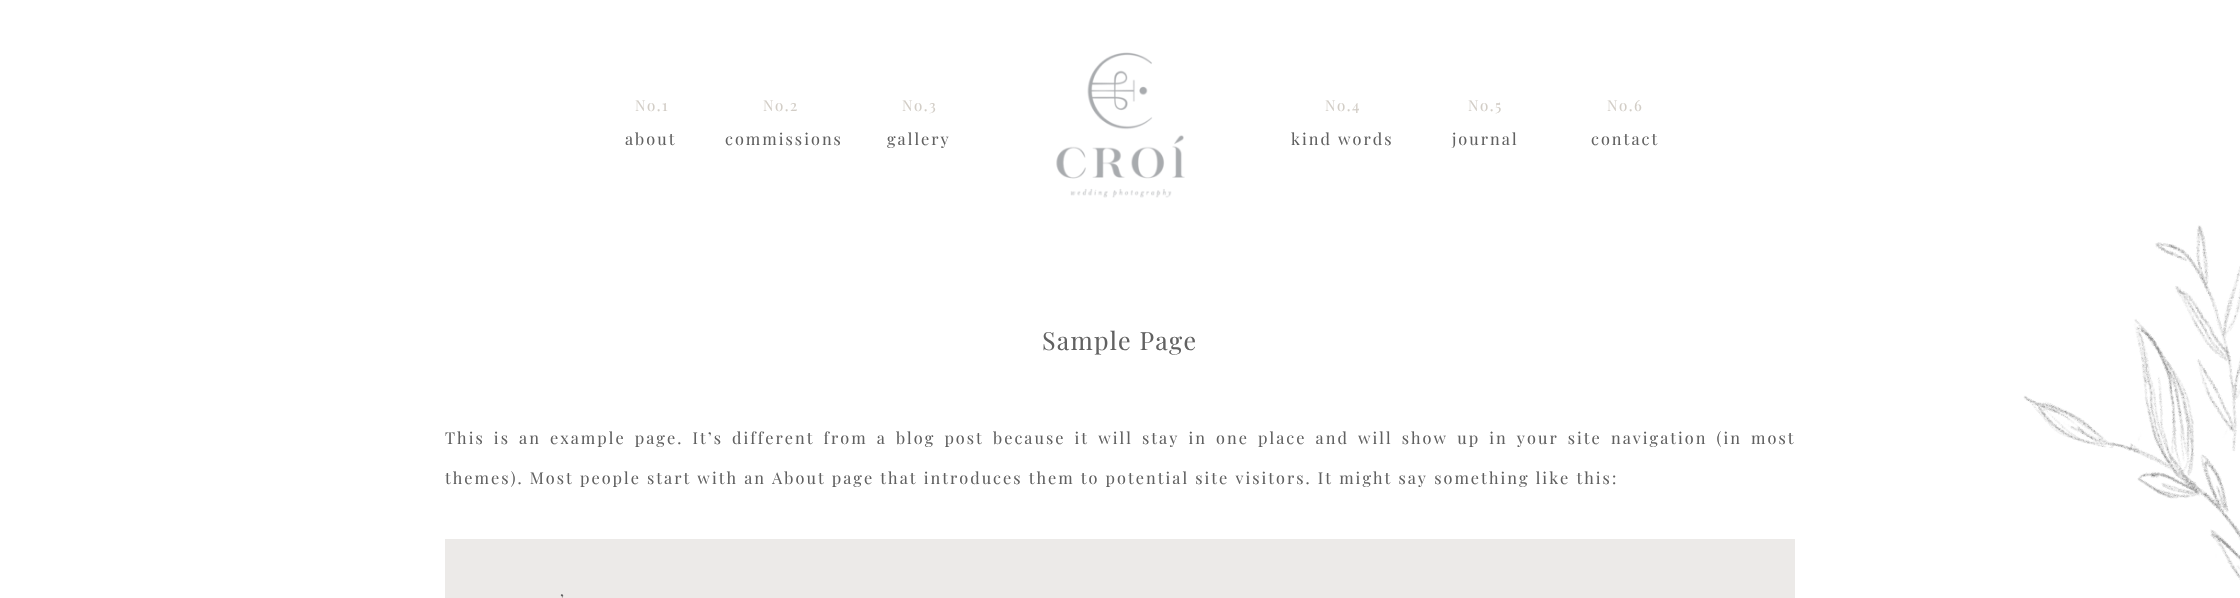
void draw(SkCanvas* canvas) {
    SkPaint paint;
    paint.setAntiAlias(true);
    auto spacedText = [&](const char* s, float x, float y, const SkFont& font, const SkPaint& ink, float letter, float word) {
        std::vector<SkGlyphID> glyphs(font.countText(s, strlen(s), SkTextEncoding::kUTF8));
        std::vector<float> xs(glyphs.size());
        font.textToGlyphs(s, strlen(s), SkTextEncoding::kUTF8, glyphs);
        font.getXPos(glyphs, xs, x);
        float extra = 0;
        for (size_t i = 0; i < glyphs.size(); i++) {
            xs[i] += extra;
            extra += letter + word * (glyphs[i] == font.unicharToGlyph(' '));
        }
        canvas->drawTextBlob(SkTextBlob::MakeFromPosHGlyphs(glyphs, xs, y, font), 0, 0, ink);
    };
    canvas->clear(0xFFFFFFFF);
    SkFont font1(fontMgr->matchFamilyStyle("Playfair Display", SkFontStyle::Normal()), 15);
    font1.setSubpixel(true);
    paint.setColor(0xFFD2CDC6);
    spacedText("No.1", 635, 111, font1, paint, 1.5f, 0);
    spacedText("No.2", 763, 111, font1, paint, 1.5f, 0);
    spacedText("No.3", 902, 111, font1, paint, 1.5f, 0);
    canvas->drawImageRect(SkImages::DeferredFromEncodedData(SkData::MakeFromFileName("img1.png")), SkRect::MakeXYWH(1056, 52, 129, 146), SkSamplingOptions());
    spacedText("No.4", 1325, 111, font1, paint, 1.5f, 0);
    spacedText("No.5", 1468, 111, font1, paint, 1.5f, 0);
    spacedText("No.6", 1607, 111, font1, paint, 1.5f, 0);
    SkFont font2(fontMgr->matchFamilyStyle("Playfair Display", SkFontStyle::Normal()), 16.25f);
    font2.setSubpixel(true);
    paint.setColor(0xFF616161);
    spacedText("about", 625, 145, font2, paint, 2.03f, 0);
    spacedText("commissions", 725, 145, font2, paint, 2.03f, 0);
    spacedText("gallery", 887, 145, font2, paint, 2.03f, 0);
    spacedText("kind words", 1291, 145, font2, paint, 2.03f, 0);
    spacedText("journal", 1452, 145, font2, paint, 2.03f, 0);
    spacedText("contact", 1591, 145, font2, paint, 2.03f, 0);
    SkFont font3(fontMgr->matchFamilyStyle("Playfair Display", SkFontStyle::Normal()), 25);
    font3.setSubpixel(true);
    spacedText("Sample Page", 1042, 350, font3, paint, 1.25f, 0);
    spacedText("This is an example page. It’s different from a blog post because it will stay in one place and will show up in your site navigation (in most", 445, 444, font2, paint, 2.03f, 3);
    spacedText("themes). Most people start with an About page that introduces them to potential site visitors. It might say something like this:", 445, 484, font2, paint, 2.03f, 0);
    paint.setColor(0xFFECEAE8);
    canvas->drawRect(SkRect::MakeXYWH(445, 539, 1350, 59), paint);
    paint.setColor(0xFF616161);
    spacedText("’", 560, 606, font2, paint, 2.03f, 1);
    canvas->drawImageRect(SkImages::DeferredFromEncodedData(SkData::MakeFromFileName("img2.png")), SkRect::MakeXYWH(2023, 225, 217, 355), SkSamplingOptions());
}
